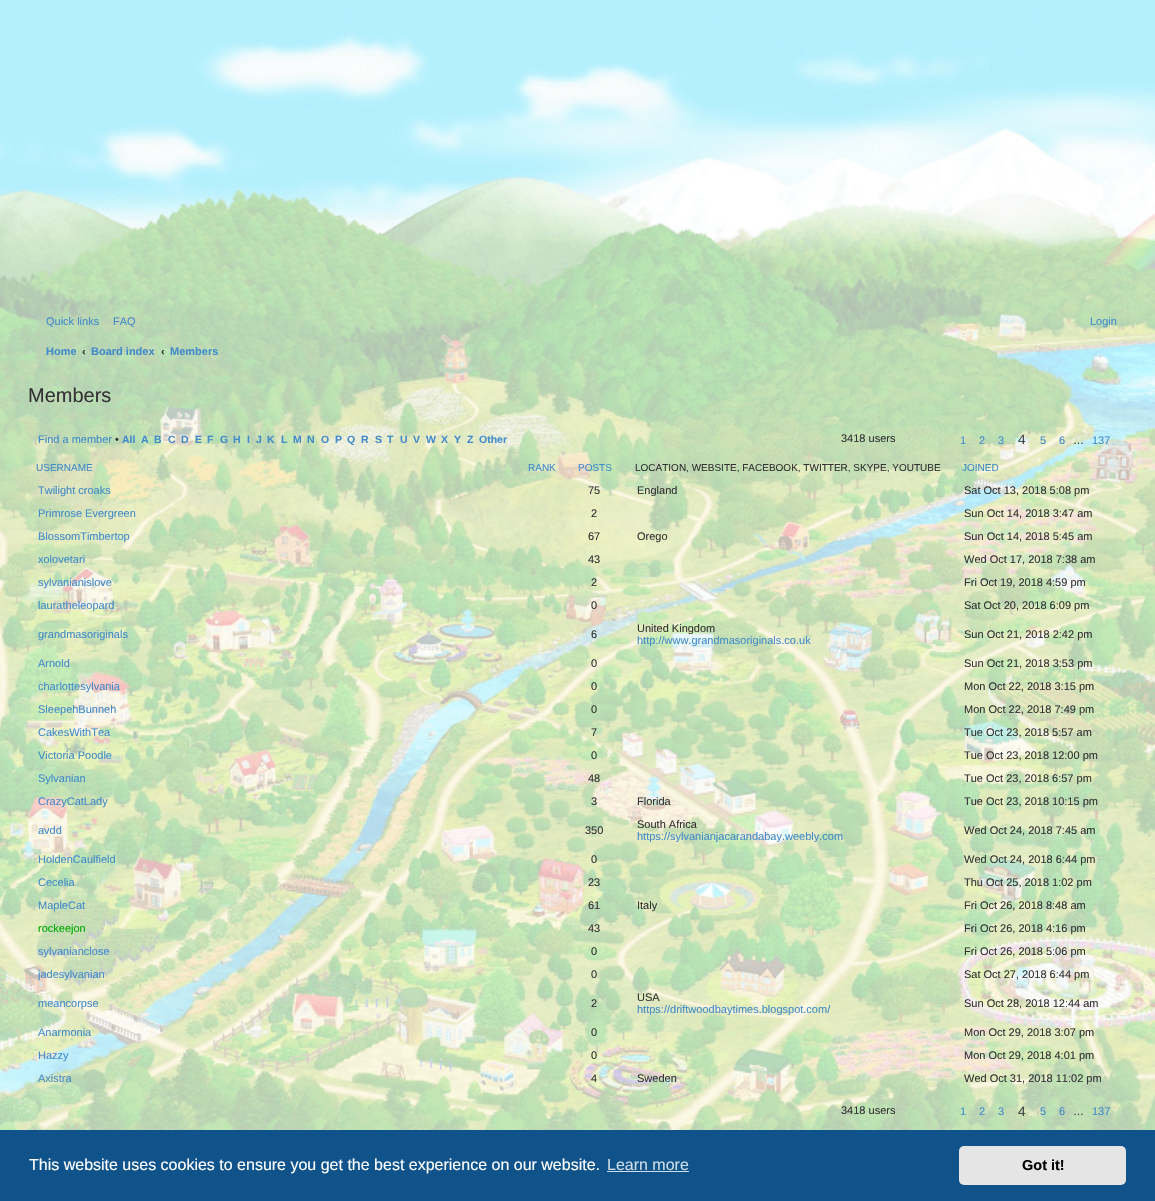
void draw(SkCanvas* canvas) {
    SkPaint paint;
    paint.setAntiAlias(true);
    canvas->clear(0xFFFFFFFF);
    canvas->drawImageRect(SkImages::DeferredFromEncodedData(SkData::MakeFromFileName("img1.png")), SkRect::MakeXYWH(0, 0, 1155, 1130), SkSamplingOptions());
    SkFont font1(fontMgr->matchFamilyStyle("Liberation Sans", SkFontStyle::Normal()), 11);
    font1.setSubpixel(true);
    paint.setColor(0xFF428BCA);
    canvas->drawString("Quick links", 46, 325, font1, paint);
    canvas->drawString("FAQ", 113, 325, font1, paint);
    canvas->drawString("Login", 1090, 325, font1, paint);
    SkFont font2(fontMgr->matchFamilyStyle("Liberation Sans", SkFontStyle::Bold()), 11);
    font2.setSubpixel(true);
    canvas->drawString("Home", 46, 355, font2, paint);
    paint.setColor(0xFF333333);
    canvas->drawString("‹", 82, 355, font2, paint);
    paint.setColor(0xFF428BCA);
    canvas->drawString("Board index", 91, 355, font2, paint);
    paint.setColor(0xFF333333);
    canvas->drawString("‹", 161, 355, font2, paint);
    paint.setColor(0xFF428BCA);
    canvas->drawString("Members", 170, 355, font2, paint);
    SkFont font3(fontMgr->matchFamilyStyle("Liberation Sans", SkFontStyle::Normal()), 20);
    font3.setSubpixel(true);
    paint.setColor(0xFF333333);
    canvas->drawString("Members", 28, 402, font3, paint);
    paint.setColor(0xFF428BCA);
    canvas->drawString("Find a member", 38, 443, font1, paint);
    paint.setColor(0xFF333333);
    canvas->drawString("•", 115, 443, font1, paint);
    SkFont font4(fontMgr->matchFamilyStyle("Liberation Sans", SkFontStyle::Bold()), 10.5f);
    font4.setSubpixel(true);
    paint.setColor(0xFF428BCA);
    canvas->drawString("All", 122, 443, font4, paint);
    canvas->drawString("A", 141, 443, font4, paint);
    canvas->drawString("B", 154, 443, font4, paint);
    canvas->drawString("C", 168, 443, font4, paint);
    canvas->drawString("D", 181, 443, font4, paint);
    canvas->drawString("E", 195, 443, font4, paint);
    canvas->drawString("F", 207, 443, font4, paint);
    canvas->drawString("G", 220, 443, font4, paint);
    canvas->drawString("H", 233, 443, font4, paint);
    canvas->drawString("I", 247, 443, font4, paint);
    canvas->drawString("J", 256, 443, font4, paint);
    canvas->drawString("K", 267, 443, font4, paint);
    canvas->drawString("L", 281, 443, font4, paint);
    canvas->drawString("M", 293, 443, font4, paint);
    canvas->drawString("N", 307, 443, font4, paint);
    canvas->drawString("O", 321, 443, font4, paint);
    canvas->drawString("P", 335, 443, font4, paint);
    canvas->drawString("Q", 347, 443, font4, paint);
    canvas->drawString("R", 361, 443, font4, paint);
    canvas->drawString("S", 375, 443, font4, paint);
    canvas->drawString("T", 387, 443, font4, paint);
    canvas->drawString("U", 400, 443, font4, paint);
    canvas->drawString("V", 413, 443, font4, paint);
    canvas->drawString("W", 426, 443, font4, paint);
    canvas->drawString("X", 441, 443, font4, paint);
    canvas->drawString("Y", 454, 443, font4, paint);
    canvas->drawString("Z", 467, 443, font4, paint);
    canvas->drawString("Other", 479, 443, font4, paint);
    paint.setColor(0xFF333333);
    canvas->drawString("3418 users", 841, 442, font1, paint);
    paint.setColor(0xFF428BCA);
    canvas->drawString("1", 960, 444, font1, paint);
    canvas->drawString("2", 979, 444, font1, paint);
    canvas->drawString("3", 998, 444, font1, paint);
    SkFont font5(fontMgr->matchFamilyStyle("Open Sans", SkFontStyle::Normal()), 13);
    font5.setSubpixel(true);
    paint.setColor(0xFF333333);
    canvas->drawString("4", 1018, 444, font5, paint);
    paint.setColor(0xFF428BCA);
    canvas->drawString("5", 1040, 444, font1, paint);
    canvas->drawString("6", 1059, 444, font1, paint);
    paint.setColor(0xFF333333);
    canvas->drawString("…", 1073, 444, font1, paint);
    paint.setColor(0xFF428BCA);
    canvas->drawString("137", 1092, 444, font1, paint);
    SkFont font6(fontMgr->matchFamilyStyle("Liberation Sans", SkFontStyle::Normal()), 10);
    font6.setSubpixel(true);
    canvas->drawString("USERNAME", 36, 471, font6, paint);
    canvas->drawString("RANK", 528, 471, font6, paint);
    canvas->drawString("POSTS", 578, 471, font6, paint);
    paint.setColor(0xFF333333);
    canvas->drawString("LOCATION, WEBSITE, FACEBOOK, TWITTER, SKYPE, YOUTUBE", 635, 471, font6, paint);
    paint.setColor(0xFF428BCA);
    canvas->drawString("JOINED", 962, 471, font6, paint);
    canvas->drawString("Twilight croaks", 38, 494, font1, paint);
    paint.setColor(0xFF333333);
    canvas->drawString("75", 588, 494, font1, paint);
    canvas->save();
    canvas->clipRect(SkRect::MakeXYWH(637, 484, 317, 12));
    canvas->drawString("England", 637, 494, font1, paint);
    canvas->restore();
    canvas->drawString("Sat Oct 13, 2018 5:08 pm", 964, 494, font1, paint);
    paint.setColor(0xFF428BCA);
    canvas->drawString("Primrose Evergreen", 38, 517, font1, paint);
    paint.setColor(0xFF333333);
    canvas->drawString("2", 591, 517, font1, paint);
    canvas->drawString("Sun Oct 14, 2018 3:47 am", 964, 517, font1, paint);
    paint.setColor(0xFF428BCA);
    canvas->drawString("BlossomTimbertop", 38, 540, font1, paint);
    paint.setColor(0xFF333333);
    canvas->drawString("67", 588, 540, font1, paint);
    canvas->drawString("Orego", 637, 540, font1, paint);
    canvas->drawString("Sun Oct 14, 2018 5:45 am", 964, 540, font1, paint);
    paint.setColor(0xFF428BCA);
    canvas->drawString("xolovetari", 38, 563, font1, paint);
    paint.setColor(0xFF333333);
    canvas->drawString("43", 588, 563, font1, paint);
    canvas->drawString("Wed Oct 17, 2018 7:38 am", 964, 563, font1, paint);
    paint.setColor(0xFF428BCA);
    canvas->drawString("sylvanianislove", 38, 586, font1, paint);
    paint.setColor(0xFF333333);
    canvas->drawString("2", 591, 586, font1, paint);
    canvas->drawString("Fri Oct 19, 2018 4:59 pm", 964, 586, font1, paint);
    paint.setColor(0xFF428BCA);
    canvas->drawString("lauratheleopard", 38, 609, font1, paint);
    paint.setColor(0xFF333333);
    canvas->drawString("0", 591, 609, font1, paint);
    canvas->drawString("Sat Oct 20, 2018 6:09 pm", 964, 609, font1, paint);
    paint.setColor(0xFF428BCA);
    canvas->drawString("grandmasoriginals", 38, 638, font1, paint);
    paint.setColor(0xFF333333);
    canvas->drawString("6", 591, 638, font1, paint);
    canvas->save();
    canvas->clipRect(SkRect::MakeXYWH(637, 622, 317, 12));
    canvas->drawString("United Kingdom", 637, 632, font1, paint);
    canvas->restore();
    canvas->save();
    canvas->clipRect(SkRect::MakeXYWH(637, 634, 317, 12));
    paint.setColor(0xFF428BCA);
    canvas->drawString("http://www.grandmasoriginals.co.uk", 637, 644, font1, paint);
    canvas->restore();
    paint.setColor(0xFF333333);
    canvas->drawString("Sun Oct 21, 2018 2:42 pm", 964, 638, font1, paint);
    paint.setColor(0xFF428BCA);
    canvas->drawString("Arnold", 38, 667, font1, paint);
    paint.setColor(0xFF333333);
    canvas->drawString("0", 591, 667, font1, paint);
    canvas->drawString("Sun Oct 21, 2018 3:53 pm", 964, 667, font1, paint);
    paint.setColor(0xFF428BCA);
    canvas->drawString("charlottesylvania", 38, 690, font1, paint);
    paint.setColor(0xFF333333);
    canvas->drawString("0", 591, 690, font1, paint);
    canvas->drawString("Mon Oct 22, 2018 3:15 pm", 964, 690, font1, paint);
    paint.setColor(0xFF428BCA);
    canvas->drawString("SleepehBunneh", 38, 713, font1, paint);
    paint.setColor(0xFF333333);
    canvas->drawString("0", 591, 713, font1, paint);
    canvas->drawString("Mon Oct 22, 2018 7:49 pm", 964, 713, font1, paint);
    paint.setColor(0xFF428BCA);
    canvas->drawString("CakesWithTea", 38, 736, font1, paint);
    paint.setColor(0xFF333333);
    canvas->drawString("7", 591, 736, font1, paint);
    canvas->drawString("Tue Oct 23, 2018 5:57 am", 964, 736, font1, paint);
    paint.setColor(0xFF428BCA);
    canvas->drawString("Victoria Poodle", 38, 759, font1, paint);
    paint.setColor(0xFF333333);
    canvas->drawString("0", 591, 759, font1, paint);
    canvas->drawString("Tue Oct 23, 2018 12:00 pm", 964, 759, font1, paint);
    paint.setColor(0xFF428BCA);
    canvas->drawString("Sylvanian", 38, 782, font1, paint);
    paint.setColor(0xFF333333);
    canvas->drawString("48", 588, 782, font1, paint);
    canvas->drawString("Tue Oct 23, 2018 6:57 pm", 964, 782, font1, paint);
    paint.setColor(0xFF428BCA);
    canvas->drawString("CrazyCatLady", 38, 805, font1, paint);
    paint.setColor(0xFF333333);
    canvas->drawString("3", 591, 805, font1, paint);
    canvas->drawString("Florida", 637, 805, font1, paint);
    canvas->drawString("Tue Oct 23, 2018 10:15 pm", 964, 805, font1, paint);
    paint.setColor(0xFF428BCA);
    canvas->drawString("avdd", 38, 834, font1, paint);
    paint.setColor(0xFF333333);
    canvas->drawString("350", 585, 834, font1, paint);
    canvas->drawString("South Africa", 637, 828, font1, paint);
    canvas->save();
    canvas->clipRect(SkRect::MakeXYWH(637, 830, 317, 12));
    paint.setColor(0xFF428BCA);
    canvas->drawString("https://sylvanianjacarandabay.weebly.com", 637, 840, font1, paint);
    canvas->restore();
    paint.setColor(0xFF333333);
    canvas->drawString("Wed Oct 24, 2018 7:45 am", 964, 834, font1, paint);
    paint.setColor(0xFF428BCA);
    canvas->drawString("HoldenCaulfield", 38, 863, font1, paint);
    paint.setColor(0xFF333333);
    canvas->drawString("0", 591, 863, font1, paint);
    canvas->drawString("Wed Oct 24, 2018 6:44 pm", 964, 863, font1, paint);
    paint.setColor(0xFF428BCA);
    canvas->drawString("Cecelia", 38, 886, font1, paint);
    paint.setColor(0xFF333333);
    canvas->drawString("23", 588, 886, font1, paint);
    canvas->drawString("Thu Oct 25, 2018 1:02 pm", 964, 886, font1, paint);
    paint.setColor(0xFF428BCA);
    canvas->drawString("MapleCat", 38, 909, font1, paint);
    paint.setColor(0xFF333333);
    canvas->drawString("61", 588, 909, font1, paint);
    canvas->drawString("Italy", 637, 909, font1, paint);
    canvas->drawString("Fri Oct 26, 2018 8:48 am", 964, 909, font1, paint);
    paint.setColor(0xFF00AA00);
    canvas->drawString("rockeejon", 38, 932, font1, paint);
    paint.setColor(0xFF333333);
    canvas->drawString("43", 588, 932, font1, paint);
    canvas->drawString("Fri Oct 26, 2018 4:16 pm", 964, 932, font1, paint);
    paint.setColor(0xFF428BCA);
    canvas->drawString("sylvanianclose", 38, 955, font1, paint);
    paint.setColor(0xFF333333);
    canvas->drawString("0", 591, 955, font1, paint);
    canvas->drawString("Fri Oct 26, 2018 5:06 pm", 964, 955, font1, paint);
    paint.setColor(0xFF428BCA);
    canvas->drawString("jadesylvanian", 38, 978, font1, paint);
    paint.setColor(0xFF333333);
    canvas->drawString("0", 591, 978, font1, paint);
    canvas->drawString("Sat Oct 27, 2018 6:44 pm", 964, 978, font1, paint);
    paint.setColor(0xFF428BCA);
    canvas->drawString("meancorpse", 38, 1007, font1, paint);
    paint.setColor(0xFF333333);
    canvas->drawString("2", 591, 1007, font1, paint);
    canvas->drawString("USA", 637, 1001, font1, paint);
    canvas->save();
    canvas->clipRect(SkRect::MakeXYWH(637, 1003, 317, 12));
    paint.setColor(0xFF428BCA);
    canvas->drawString("https://driftwoodbaytimes.blogspot.com/", 637, 1013, font1, paint);
    canvas->restore();
    paint.setColor(0xFF333333);
    canvas->drawString("Sun Oct 28, 2018 12:44 am", 964, 1007, font1, paint);
    paint.setColor(0xFF428BCA);
    canvas->drawString("Anarmonia", 38, 1036, font1, paint);
    paint.setColor(0xFF333333);
    canvas->drawString("0", 591, 1036, font1, paint);
    canvas->drawString("Mon Oct 29, 2018 3:07 pm", 964, 1036, font1, paint);
    paint.setColor(0xFF428BCA);
    canvas->drawString("Hazzy", 38, 1059, font1, paint);
    paint.setColor(0xFF333333);
    canvas->drawString("0", 591, 1059, font1, paint);
    canvas->drawString("Mon Oct 29, 2018 4:01 pm", 964, 1059, font1, paint);
    paint.setColor(0xFF428BCA);
    canvas->drawString("Axistra", 38, 1082, font1, paint);
    paint.setColor(0xFF333333);
    canvas->drawString("4", 591, 1082, font1, paint);
    canvas->drawString("Sweden", 637, 1082, font1, paint);
    canvas->drawString("Wed Oct 31, 2018 11:02 pm", 964, 1082, font1, paint);
    canvas->drawString("3418 users", 841, 1114, font1, paint);
    paint.setColor(0xFF428BCA);
    canvas->drawString("1", 960, 1115, font1, paint);
    canvas->drawString("2", 979, 1115, font1, paint);
    canvas->drawString("3", 998, 1115, font1, paint);
    paint.setColor(0xFF333333);
    canvas->drawString("4", 1018, 1116, font5, paint);
    paint.setColor(0xFF428BCA);
    canvas->drawString("5", 1040, 1115, font1, paint);
    canvas->drawString("6", 1059, 1115, font1, paint);
    paint.setColor(0xFF333333);
    canvas->drawString("…", 1073, 1115, font1, paint);
    paint.setColor(0xFF428BCA);
    canvas->drawString("137", 1092, 1115, font1, paint);
    paint.setColor(0xFF0F538A);
    canvas->drawRect(SkRect::MakeXYWH(0, 1130, 1155, 71), paint);
    SkFont font7(fontMgr->matchFamilyStyle("Liberation Sans", SkFontStyle::Normal()), 16);
    font7.setSubpixel(true);
    paint.setColor(0xFFFFFFFF);
    canvas->drawString("This website uses cookies to ensure you get the best experience on our website.", 29, 1170, font7, paint);
    paint.setColor(0xFFCFDDE8);
    canvas->drawString("Learn more", 607, 1170, font7, paint);
    canvas->drawRect(SkRect::MakeXYWH(607, 1171, 82, 1), paint);
    paint.setColor(0xFFE5E5E5);
    canvas->drawRoundRect(SkRect::MakeXYWH(959, 1146, 167, 39), 5, 5, paint);
    SkFont font8(fontMgr->matchFamilyStyle("Liberation Sans", SkFontStyle::Bold()), 14.5f);
    font8.setSubpixel(true);
    paint.setColor(0xFF000000);
    canvas->drawString("Got it!", 1022, 1170, font8, paint);
}
